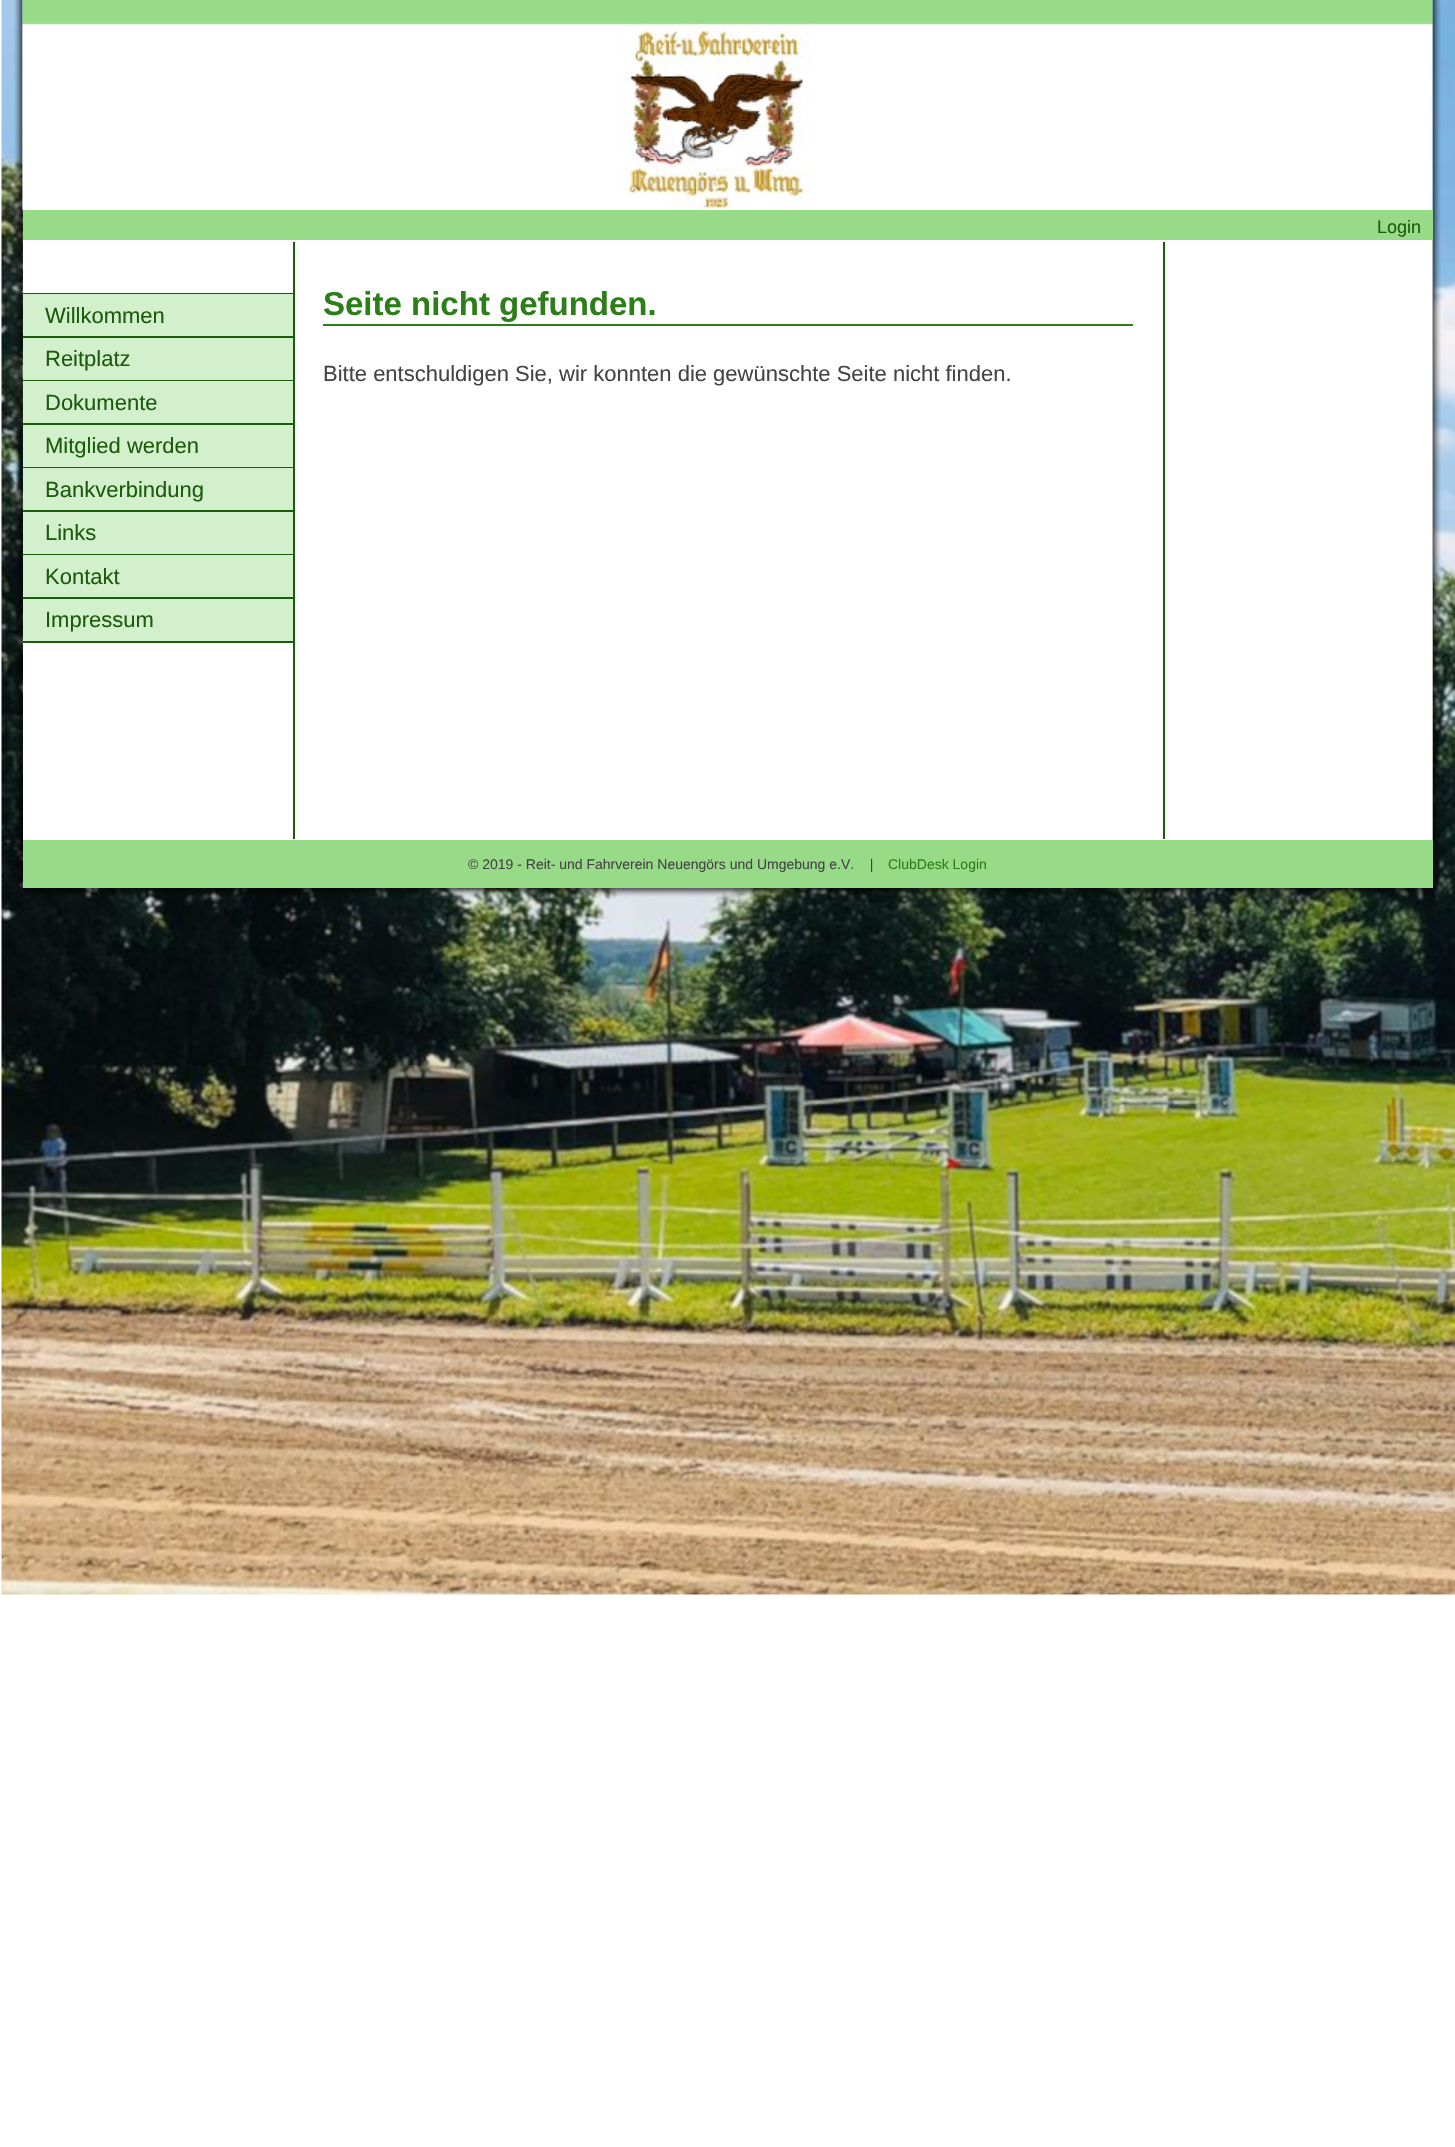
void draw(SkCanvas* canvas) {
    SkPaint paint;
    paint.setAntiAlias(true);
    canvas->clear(0xFFFFFFFF);
    canvas->drawImageRect(SkImages::DeferredFromEncodedData(SkData::MakeFromFileName("img1.png")), SkRect::MakeXYWH(1, 0, 1454, 1595), SkSamplingOptions());
    canvas->drawImageRect(SkImages::DeferredFromEncodedData(SkData::MakeFromFileName("img2.png")), SkRect::MakeXYWH(14, 0, 1427, 210), SkSamplingOptions());
    canvas->drawImageRect(SkImages::DeferredFromEncodedData(SkData::MakeFromFileName("img3.png")), SkRect::MakeXYWH(22, 0, 1411, 210), SkSamplingOptions());
    canvas->drawImageRect(SkImages::DeferredFromEncodedData(SkData::MakeFromFileName("img4.png")), SkRect::MakeXYWH(14, 210, 1427, 30), SkSamplingOptions());
    paint.setColor(0xFF97DA87);
    canvas->drawRect(SkRect::MakeXYWH(23, 210, 1410, 30), paint);
    SkFont font1(fontMgr->matchFamilyStyle("Liberation Sans", SkFontStyle::Normal()), 18);
    font1.setSubpixel(true);
    paint.setColor(0xFF1B5B0C);
    canvas->drawString("Login", 1377, 233, font1, paint);
    paint.setColor(0xFFFFFFFF);
    canvas->drawRect(SkRect::MakeXYWH(23, 240, 1410, 600), paint);
    canvas->drawImageRect(SkImages::DeferredFromEncodedData(SkData::MakeFromFileName("img5.png")), SkRect::MakeXYWH(14, 240, 1427, 600), SkSamplingOptions());
    paint.setColor(0xFF1B5B0C);
    canvas->drawRect(SkRect::MakeXYWH(23, 641, 270, 2), paint);
    canvas->drawRect(SkRect::MakeXYWH(23, 293, 270, 1), paint);
    paint.setColor(0xFFD3F0CC);
    canvas->drawRect(SkRect::MakeXYWH(23, 294, 270, 42), paint);
    SkFont font2(fontMgr->matchFamilyStyle("Liberation Sans", SkFontStyle::Normal()), 22);
    font2.setSubpixel(true);
    paint.setColor(0xFF1B5B0C);
    canvas->drawString("Willkommen", 45, 323, font2, paint);
    canvas->drawRect(SkRect::MakeXYWH(23, 336, 270, 2), paint);
    paint.setColor(0xFFD3F0CC);
    canvas->drawRect(SkRect::MakeXYWH(23, 338, 270, 42), paint);
    paint.setColor(0xFF1B5B0C);
    canvas->drawString("Reitplatz", 45, 366, font2, paint);
    canvas->drawRect(SkRect::MakeXYWH(23, 380, 270, 1), paint);
    paint.setColor(0xFFD3F0CC);
    canvas->drawRect(SkRect::MakeXYWH(23, 381, 270, 42), paint);
    paint.setColor(0xFF1B5B0C);
    canvas->drawString("Dokumente", 45, 410, font2, paint);
    canvas->drawRect(SkRect::MakeXYWH(23, 423, 270, 2), paint);
    paint.setColor(0xFFD3F0CC);
    canvas->drawRect(SkRect::MakeXYWH(23, 425, 270, 42), paint);
    paint.setColor(0xFF1B5B0C);
    canvas->drawString("Mitglied werden", 45, 453, font2, paint);
    canvas->drawRect(SkRect::MakeXYWH(23, 467, 270, 1), paint);
    paint.setColor(0xFFD3F0CC);
    canvas->drawRect(SkRect::MakeXYWH(23, 468, 270, 42), paint);
    paint.setColor(0xFF1B5B0C);
    canvas->drawString("Bankverbindung", 45, 497, font2, paint);
    canvas->drawRect(SkRect::MakeXYWH(23, 510, 270, 2), paint);
    paint.setColor(0xFFD3F0CC);
    canvas->drawRect(SkRect::MakeXYWH(23, 512, 270, 42), paint);
    paint.setColor(0xFF1B5B0C);
    canvas->drawString("Links", 45, 540, font2, paint);
    canvas->drawRect(SkRect::MakeXYWH(23, 554, 270, 1), paint);
    paint.setColor(0xFFD3F0CC);
    canvas->drawRect(SkRect::MakeXYWH(23, 555, 270, 42), paint);
    paint.setColor(0xFF1B5B0C);
    canvas->drawString("Kontakt", 45, 584, font2, paint);
    canvas->drawRect(SkRect::MakeXYWH(23, 597, 270, 2), paint);
    paint.setColor(0xFFD3F0CC);
    canvas->drawRect(SkRect::MakeXYWH(23, 599, 270, 42), paint);
    paint.setColor(0xFF1B5B0C);
    canvas->drawString("Impressum", 45, 627, font2, paint);
    canvas->drawRect(SkRect::MakeXYWH(293, 242, 2, 597), paint);
    paint.setColor(0xFF2C7F18);
    canvas->drawRect(SkRect::MakeXYWH(323, 324, 810, 2), paint);
    SkFont font3(fontMgr->matchFamilyStyle("Liberation Sans", SkFontStyle::Bold()), 33);
    font3.setSubpixel(true);
    canvas->drawString("Seite nicht gefunden.", 323, 315, font3, paint);
    paint.setColor(0xFF444444);
    canvas->drawString("Bitte entschuldigen Sie, wir konnten die gewünschte Seite nicht finden.", 323, 381, font2, paint);
    paint.setColor(0xFF1B5B0C);
    canvas->drawRect(SkRect::MakeXYWH(1163, 242, 2, 597), paint);
    canvas->drawImageRect(SkImages::DeferredFromEncodedData(SkData::MakeFromFileName("img6.png")), SkRect::MakeXYWH(16, 840, 1424, 48), SkSamplingOptions());
    paint.setColor(0xFF97DA87);
    canvas->drawRect(SkRect::MakeXYWH(23, 840, 1410, 48), paint);
    SkFont font4(fontMgr->matchFamilyStyle("Liberation Sans", SkFontStyle::Normal()), 14);
    font4.setSubpixel(true);
    paint.setColor(0xFF444444);
    canvas->drawString("© 2019 - Reit- und Fahrverein Neuengörs und Umgebung e.V.    |", 468, 869, font4, paint);
    paint.setColor(0xFF2C7F18);
    canvas->drawString("ClubDesk Login", 888, 869, font4, paint);
    canvas->drawImageRect(SkImages::DeferredFromEncodedData(SkData::MakeFromFileName("img7.png")), SkRect::MakeXYWH(19, 888, 1421, 9), SkSamplingOptions());
}
